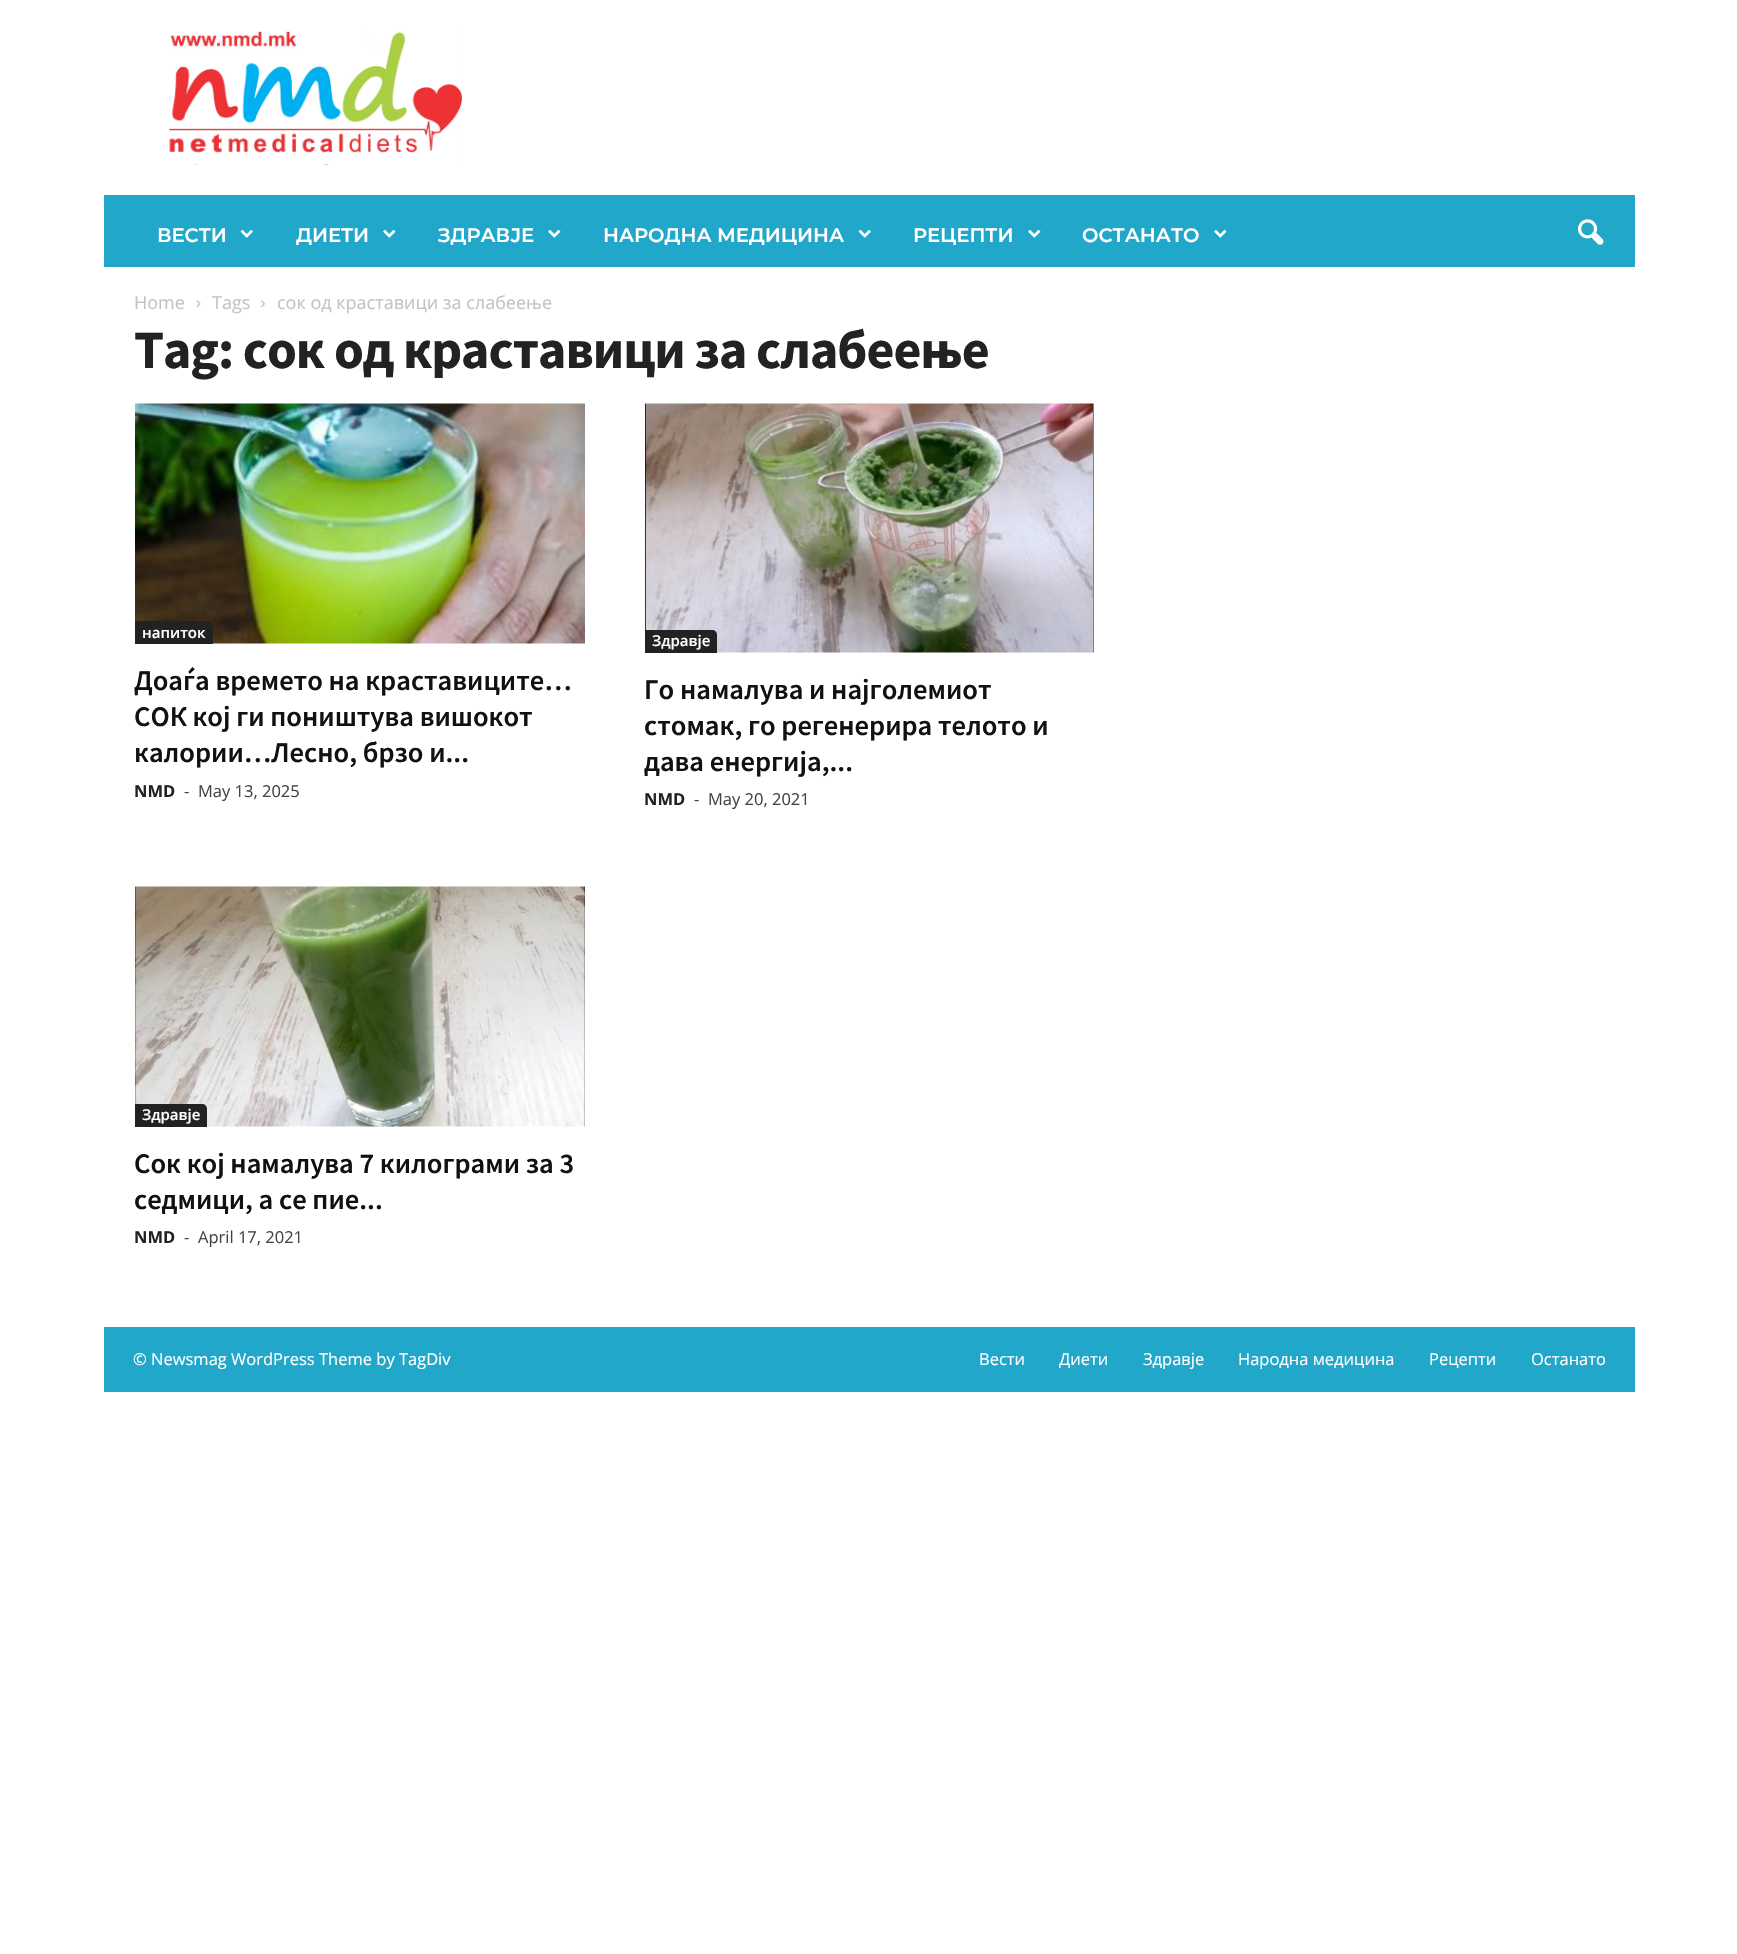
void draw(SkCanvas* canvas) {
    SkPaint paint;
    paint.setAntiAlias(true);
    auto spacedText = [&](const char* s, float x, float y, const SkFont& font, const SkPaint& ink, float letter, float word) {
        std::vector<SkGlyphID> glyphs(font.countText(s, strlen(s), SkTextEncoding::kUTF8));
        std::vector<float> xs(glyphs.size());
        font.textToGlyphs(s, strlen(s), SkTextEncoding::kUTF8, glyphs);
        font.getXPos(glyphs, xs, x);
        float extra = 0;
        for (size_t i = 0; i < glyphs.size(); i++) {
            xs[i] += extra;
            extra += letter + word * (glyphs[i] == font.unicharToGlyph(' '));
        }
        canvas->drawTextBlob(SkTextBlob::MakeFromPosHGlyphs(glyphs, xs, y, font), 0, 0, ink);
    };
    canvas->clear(0xFFFFFFFF);
    canvas->drawImageRect(SkImages::DeferredFromEncodedData(SkData::MakeFromFileName("img1.png")), SkRect::MakeXYWH(169, 31, 293, 134), SkSamplingOptions());
    paint.setColor(0xFF20A7C9);
    canvas->drawRect(SkRect::MakeXYWH(104, 195, 1531, 72), paint);
    SkFont font1(fontMgr->matchFamilyStyle("Montserrat", SkFontStyle(600, SkFontStyle::kNormal_Width, SkFontStyle::kUpright_Slant)), 19.5f);
    font1.setSubpixel(true);
    paint.setColor(0xFFFFFFFF);
    canvas->drawString("ВЕСТИ", 157, 242, font1, paint);
    canvas->drawImageRect(SkImages::DeferredFromEncodedData(SkData::MakeFromFileName("img2.png")), SkRect::MakeXYWH(240, 229, 13, 9), SkSamplingOptions());
    canvas->drawString("ДИЕТИ", 296, 242, font1, paint);
    canvas->drawImageRect(SkImages::DeferredFromEncodedData(SkData::MakeFromFileName("img3.png")), SkRect::MakeXYWH(383, 229, 13, 9), SkSamplingOptions());
    canvas->drawString("ЗДРАВЈЕ", 438, 242, font1, paint);
    canvas->drawImageRect(SkImages::DeferredFromEncodedData(SkData::MakeFromFileName("img3.png")), SkRect::MakeXYWH(548, 229, 13, 9), SkSamplingOptions());
    canvas->drawString("НАРОДНА МЕДИЦИНА", 603, 242, font1, paint);
    canvas->drawImageRect(SkImages::DeferredFromEncodedData(SkData::MakeFromFileName("img2.png")), SkRect::MakeXYWH(858, 229, 13, 9), SkSamplingOptions());
    canvas->drawString("РЕЦЕПТИ", 913, 242, font1, paint);
    canvas->drawImageRect(SkImages::DeferredFromEncodedData(SkData::MakeFromFileName("img3.png")), SkRect::MakeXYWH(1028, 229, 13, 9), SkSamplingOptions());
    canvas->drawString("ОСТАНАТО", 1082, 242, font1, paint);
    canvas->drawImageRect(SkImages::DeferredFromEncodedData(SkData::MakeFromFileName("img3.png")), SkRect::MakeXYWH(1214, 229, 13, 9), SkSamplingOptions());
    canvas->drawImageRect(SkImages::DeferredFromEncodedData(SkData::MakeFromFileName("img4.png")), SkRect::MakeXYWH(1578, 219, 26, 26), SkSamplingOptions());
    SkFont font2(fontMgr->matchFamilyStyle("Open Sans", SkFontStyle::Normal()), 18);
    font2.setSubpixel(true);
    paint.setColor(0xFFC3C3C3);
    canvas->drawString("Home", 134, 309, font2, paint);
    canvas->drawImageRect(SkImages::DeferredFromEncodedData(SkData::MakeFromFileName("img5.png")), SkRect::MakeXYWH(196, 300, 5, 8), SkSamplingOptions());
    canvas->drawString("Tags", 212, 309, font2, paint);
    canvas->drawImageRect(SkImages::DeferredFromEncodedData(SkData::MakeFromFileName("img6.png")), SkRect::MakeXYWH(261, 300, 4, 8), SkSamplingOptions());
    canvas->drawString("сок од краставици за слабеење", 277, 309, font2, paint);
    SkFont font3(fontMgr->matchFamilyStyle("Source Sans Pro", SkFontStyle::Bold()), 54);
    font3.setSubpixel(true);
    paint.setColor(0xFF222222);
    spacedText("Tag: сок од краставици за слабеење", 134, 368, font3, paint, -1.1f, 0);
    canvas->drawImageRect(SkImages::DeferredFromEncodedData(SkData::MakeFromFileName("img7.png")), SkRect::MakeXYWH(135, 403, 450, 241), SkSamplingOptions());
    canvas->drawPath(SkPathBuilder().moveTo(135, 621).lineTo(208, 621).cubicTo(211, 621, 213, 623, 213, 626).lineTo(213, 644).lineTo(135, 644).close().detach(), paint);
    SkFont font4(fontMgr->matchFamilyStyle("Open Sans", SkFontStyle(600, SkFontStyle::kNormal_Width, SkFontStyle::kUpright_Slant)), 15);
    font4.setSubpixel(true);
    paint.setColor(0xFFFFFFFF);
    canvas->drawString("напиток", 142, 638, font4, paint);
    SkFont font5(fontMgr->matchFamilyStyle("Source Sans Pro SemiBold", SkFontStyle(600, SkFontStyle::kNormal_Width, SkFontStyle::kUpright_Slant)), 28.5f);
    font5.setSubpixel(true);
    paint.setColor(0xFF111111);
    canvas->drawString("Доаѓа времето на краставиците…", 134, 690, font5, paint);
    canvas->drawString("СОК кој ги поништува вишокот", 134, 726, font5, paint);
    canvas->drawString("калории…Лесно, брзо и...", 134, 762, font5, paint);
    SkFont font6(fontMgr->matchFamilyStyle("Open Sans", SkFontStyle::Bold()), 16.5f);
    font6.setSubpixel(true);
    paint.setColor(0xFF222222);
    canvas->drawString("NMD", 134, 797, font6, paint);
    SkFont font7(fontMgr->matchFamilyStyle("Open Sans", SkFontStyle::Normal()), 16.5f);
    font7.setSubpixel(true);
    paint.setColor(0xFF444444);
    canvas->drawString("-", 184, 797, font7, paint);
    canvas->drawString("May 13, 2025", 198, 797, font7, paint);
    canvas->drawImageRect(SkImages::DeferredFromEncodedData(SkData::MakeFromFileName("img8.png")), SkRect::MakeXYWH(645, 403, 449, 250), SkSamplingOptions());
    paint.setColor(0xFF222222);
    canvas->drawPath(SkPathBuilder().moveTo(645, 630).lineTo(712, 630).cubicTo(715, 630, 717, 632, 717, 635).lineTo(717, 653).lineTo(645, 653).close().detach(), paint);
    paint.setColor(0xFFFFFFFF);
    canvas->drawString("Здравје", 652, 646, font4, paint);
    paint.setColor(0xFF111111);
    canvas->drawString("Го намалува и најголемиот", 644, 699, font5, paint);
    canvas->drawString("стомак, го регенерира телото и", 644, 735, font5, paint);
    canvas->drawString("дава енергија,...", 644, 771, font5, paint);
    paint.setColor(0xFF222222);
    canvas->drawString("NMD", 644, 805, font6, paint);
    paint.setColor(0xFF444444);
    canvas->drawString("-", 694, 805, font7, paint);
    canvas->drawString("May 20, 2021", 708, 805, font7, paint);
    canvas->drawImageRect(SkImages::DeferredFromEncodedData(SkData::MakeFromFileName("img9.png")), SkRect::MakeXYWH(135, 886, 450, 241), SkSamplingOptions());
    paint.setColor(0xFF222222);
    canvas->drawPath(SkPathBuilder().moveTo(135, 1104).lineTo(202, 1104).cubicTo(205, 1104, 207, 1106, 207, 1109).lineTo(207, 1127).lineTo(135, 1127).close().detach(), paint);
    paint.setColor(0xFFFFFFFF);
    canvas->drawString("Здравје", 142, 1120, font4, paint);
    paint.setColor(0xFF111111);
    canvas->drawString("Сок кој намалува 7 килограми за 3", 134, 1173, font5, paint);
    canvas->drawString("седмици, а се пие...", 134, 1209, font5, paint);
    paint.setColor(0xFF222222);
    canvas->drawString("NMD", 134, 1243, font6, paint);
    paint.setColor(0xFF444444);
    canvas->drawString("-", 184, 1243, font7, paint);
    canvas->drawString("April 17, 2021", 198, 1243, font7, paint);
    paint.setColor(0xFF20A7C9);
    canvas->drawRect(SkRect::MakeXYWH(104, 1327, 1531, 65), paint);
    paint.setColor(0xFFFFFFFF);
    canvas->drawString("© Newsmag WordPress Theme by TagDiv", 133, 1365, font7, paint);
    canvas->drawString("Вести", 979, 1365, font7, paint);
    canvas->drawString("Диети", 1059, 1365, font7, paint);
    canvas->drawString("Здравје", 1143, 1365, font7, paint);
    canvas->drawString("Народна медицина", 1238, 1365, font7, paint);
    canvas->drawString("Рецепти", 1429, 1365, font7, paint);
    canvas->drawString("Останато", 1531, 1365, font7, paint);
}
